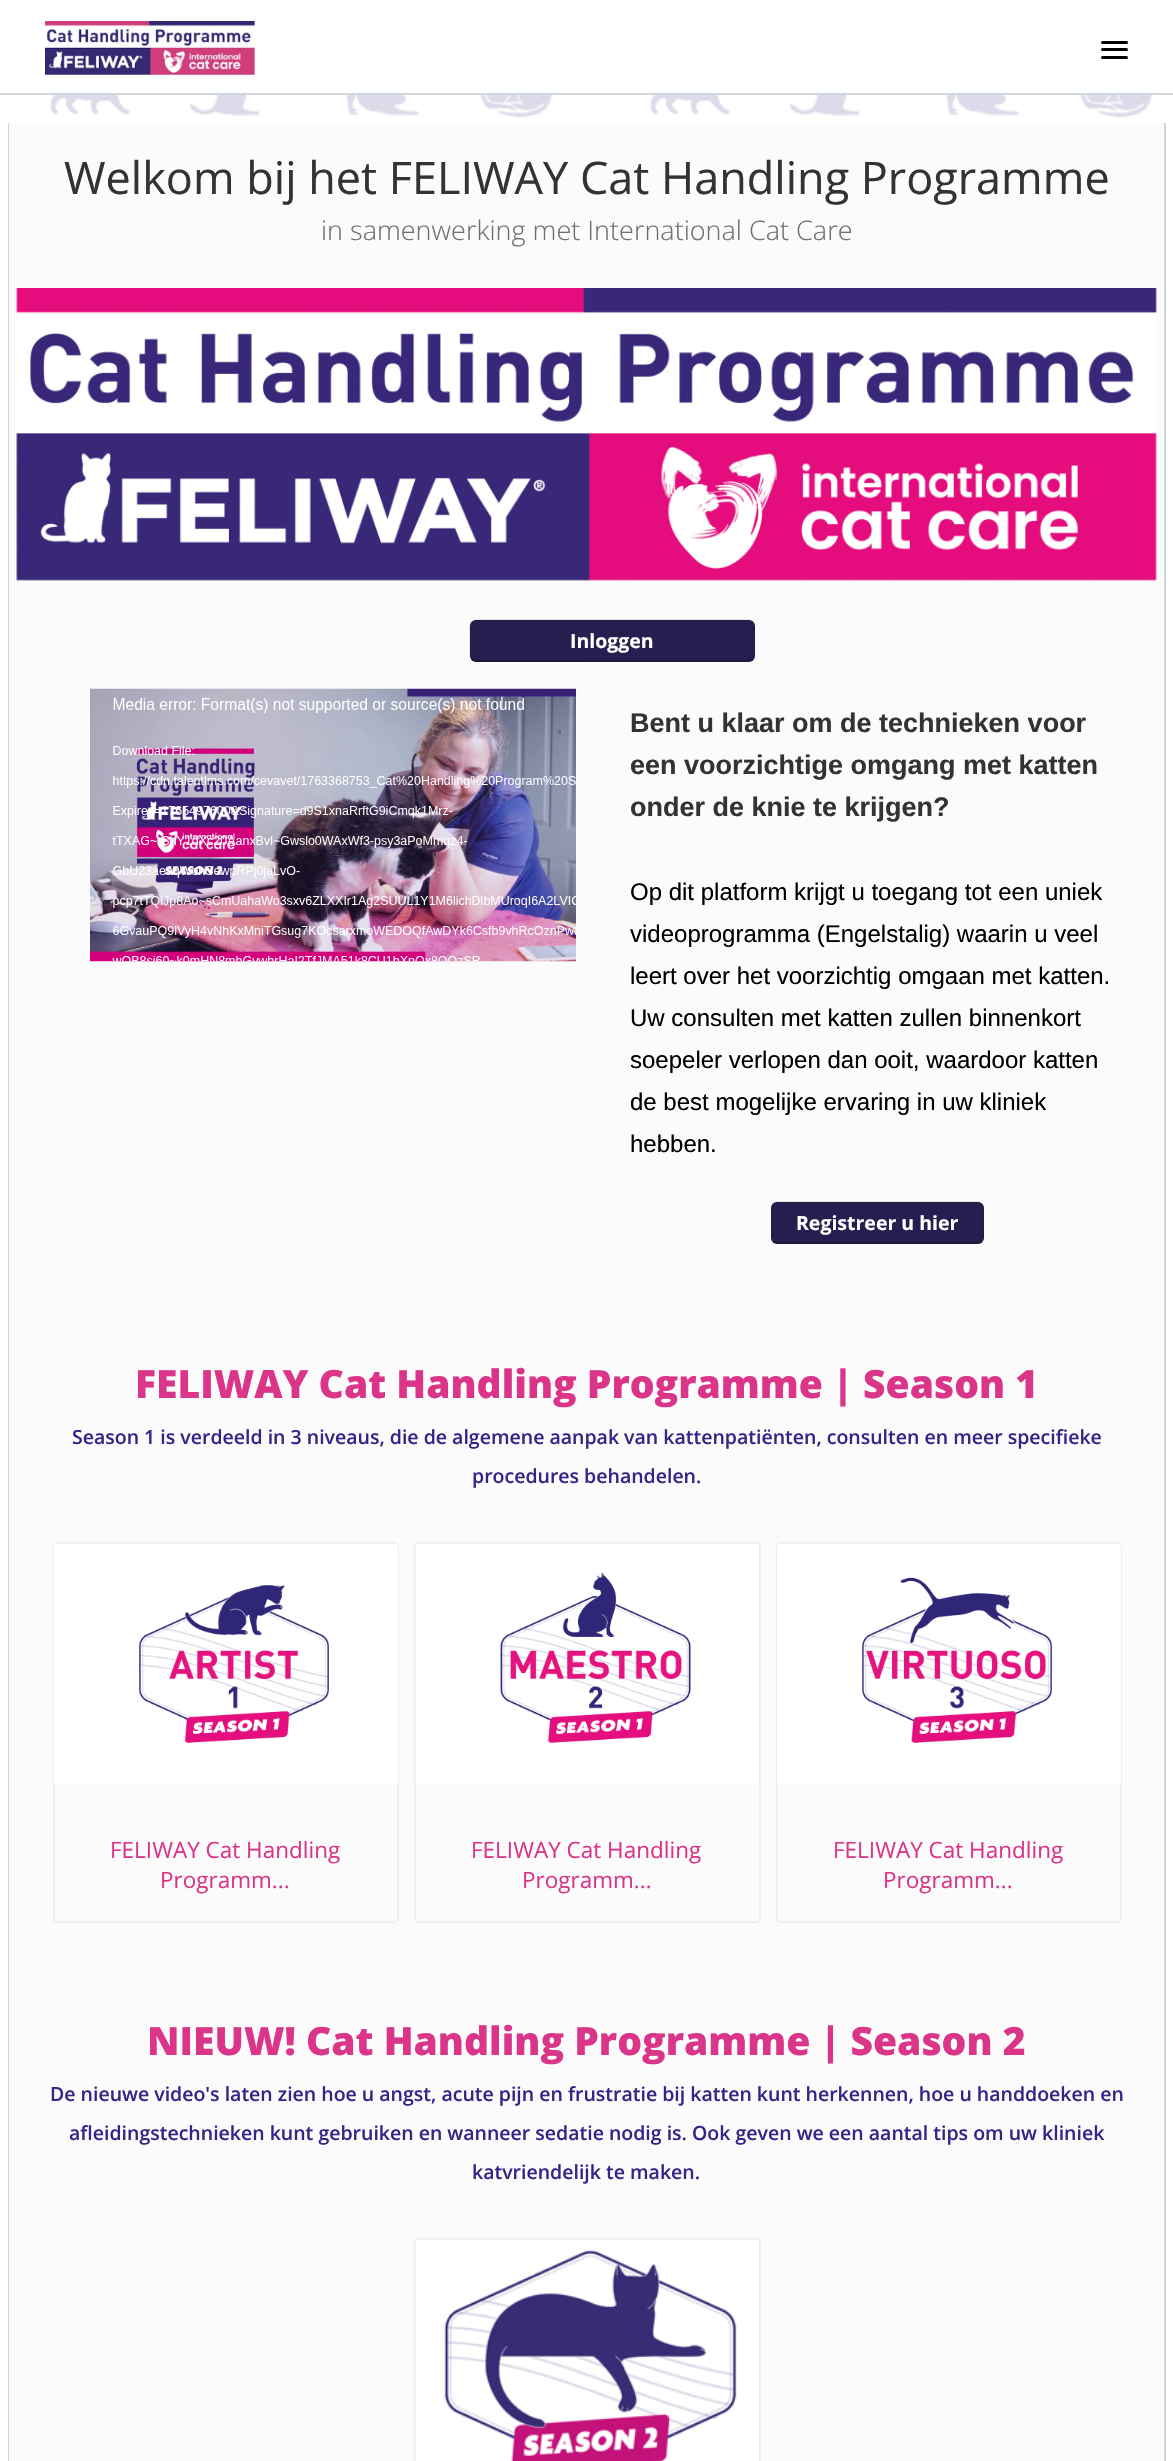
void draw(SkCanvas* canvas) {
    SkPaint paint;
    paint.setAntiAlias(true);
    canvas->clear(0xFFFFFFFF);
    canvas->drawImageRect(SkImages::DeferredFromEncodedData(SkData::MakeFromFileName("img1.png")), SkRect::MakeXYWH(0, 95, 1173, 2366), SkSamplingOptions());
    paint.setColor(0xFFCFD8DC);
    canvas->drawRect(SkRect::MakeXYWH(0, 93, 1173, 2), paint);
    canvas->drawImageRect(SkImages::DeferredFromEncodedData(SkData::MakeFromFileName("img2.png")), SkRect::MakeXYWH(45, 21, 211, 54), SkSamplingOptions());
    paint.setColor(0xFF000000);
    canvas->drawRoundRect(SkRect::MakeXYWH(1101, 41, 27, 3), 1.5f, 1.5f, paint);
    canvas->drawRoundRect(SkRect::MakeXYWH(1101, 48, 27, 3), 1.5f, 1.5f, paint);
    canvas->drawRoundRect(SkRect::MakeXYWH(1101, 56, 27, 3), 1.5f, 1.5f, paint);
    paint.setColor(0xFFFBFBFB);
    canvas->drawRect(SkRect::MakeXYWH(9, 123, 1155, 2338), paint);
    paint.setColor(0xFFC8D6DD);
    canvas->drawPath(SkPathBuilder(SkPathFillType::kEvenOdd).moveTo(8, 123).lineTo(1166, 123).lineTo(1166, 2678).cubicTo(1166, 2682, 1162, 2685, 1158, 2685).lineTo(15, 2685).cubicTo(11, 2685, 8, 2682, 8, 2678).close().moveTo(9, 123).lineTo(1164, 123).lineTo(1164, 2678).cubicTo(1164, 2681, 1161, 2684, 1158, 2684).lineTo(15, 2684).cubicTo(12, 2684, 9, 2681, 9, 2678).close().detach(), paint);
    SkFont font1(fontMgr->matchFamilyStyle("Open Sans", SkFontStyle::Normal()), 45);
    font1.setSubpixel(true);
    paint.setColor(0xFF333333);
    canvas->drawString("Welkom bij het FELIWAY Cat Handling Programme", 64, 194, font1, paint);
    SkFont font2(fontMgr->matchFamilyStyle("Open Sans", SkFontStyle(300, SkFontStyle::kNormal_Width, SkFontStyle::kUpright_Slant)), 27);
    font2.setSubpixel(true);
    paint.setColor(0xFF6F6F6F);
    canvas->drawString("in samenwerking met International Cat Care", 321, 240, font2, paint);
    canvas->drawImageRect(SkImages::DeferredFromEncodedData(SkData::MakeFromFileName("img3.png")), SkRect::MakeXYWH(16, 288, 1141, 293), SkSamplingOptions());
    paint.setColor(0xFF271D4F);
    canvas->drawRoundRect(SkRect::MakeXYWH(470, 620, 285, 42), 6, 6, paint);
    paint.setStyle(SkPaint::kStroke_Style);
    paint.setStrokeWidth(1.5f);
    paint.setColor(0x40000000);
    canvas->drawPath(SkPathBuilder().moveTo(752, 659).lineTo(749, 660.5f).lineTo(475.5f, 661).cubicTo(474, 660.5f, 473, 660, 472, 659).detach(), paint);
    paint.setColor(0x1A000000);
    canvas->drawPath(SkPathBuilder().moveTo(472, 659).cubicTo(469.5f, 657, 470, 653.5f, 470, 650.5f).lineTo(470, 635.5f).cubicTo(470, 631.5f, 468, 620.5f, 475.5f, 620).lineTo(748.5f, 620).cubicTo(756, 620.5f, 754, 631.5f, 754, 635.5f).lineTo(754, 650.5f).cubicTo(754, 653.5f, 754.5f, 657, 752, 659).detach(), paint);
    SkFont font3(fontMgr->matchFamilyStyle("Open Sans", SkFontStyle::Bold()), 19.5f);
    font3.setSubpixel(true);
    paint.setStyle(SkPaint::kFill_Style);
    paint.setColor(0xFFFFFFFF);
    canvas->drawString("Inloggen", 570, 648, font3, paint);
    canvas->drawImageRect(SkImages::DeferredFromEncodedData(SkData::MakeFromFileName("img4.png")), SkRect::MakeXYWH(90, 688, 486, 274), SkSamplingOptions());
    SkFont font4(fontMgr->matchFamilyStyle("Liberation Sans", SkFontStyle::Bold()), 27);
    font4.setSubpixel(true);
    paint.setColor(0xFF333333);
    canvas->drawString("Bent u klaar om de technieken voor", 630, 732, font4, paint);
    canvas->drawString("een voorzichtige omgang met katten", 630, 774, font4, paint);
    canvas->drawString("onder de knie te krijgen?", 630, 816, font4, paint);
    SkFont font5(fontMgr->matchFamilyStyle("Liberation Sans", SkFontStyle::Normal()), 24);
    font5.setSubpixel(true);
    paint.setColor(0xFF000000);
    canvas->drawString("Op dit platform krijgt u toegang tot een uniek", 630, 900, font5, paint);
    canvas->drawString("videoprogramma (Engelstalig) waarin u veel", 630, 942, font5, paint);
    canvas->drawString("leert over het voorzichtig omgaan met katten.", 630, 984, font5, paint);
    canvas->drawString("Uw consulten met katten zullen binnenkort", 630, 1026, font5, paint);
    canvas->drawString("soepeler verlopen dan ooit, waardoor katten", 630, 1068, font5, paint);
    canvas->drawString("de best mogelijke ervaring in uw kliniek", 630, 1110, font5, paint);
    canvas->drawString("hebben.", 630, 1152, font5, paint);
    paint.setColor(0xFF271D4F);
    canvas->drawRoundRect(SkRect::MakeXYWH(771, 1202, 213, 42), 6, 6, paint);
    paint.setStyle(SkPaint::kStroke_Style);
    paint.setColor(0x40000000);
    canvas->drawPath(SkPathBuilder().moveTo(981.5f, 1241).cubicTo(980.5f, 1242, 979.5f, 1243, 978, 1243).lineTo(777, 1243).cubicTo(775.5f, 1243, 774.5f, 1242, 773.5f, 1241).detach(), paint);
    paint.setColor(0x1A000000);
    canvas->drawPath(SkPathBuilder().moveTo(773.5f, 1241).cubicTo(772.5f, 1240, 772, 1239, 772, 1237.5f).lineTo(772, 1207.5f).cubicTo(772, 1206, 772.5f, 1205, 773.5f, 1204).cubicTo(774.5f, 1203, 775.5f, 1202, 777, 1202).lineTo(978, 1202).cubicTo(979.5f, 1202, 980.5f, 1203, 981.5f, 1204).cubicTo(982.5f, 1205, 983, 1206, 983, 1207.5f).lineTo(983, 1237.5f).cubicTo(983, 1239, 982.5f, 1240, 981.5f, 1241).detach(), paint);
    paint.setStyle(SkPaint::kFill_Style);
    paint.setColor(0xFFFFFFFF);
    canvas->drawString("Registreer u hier", 796, 1230, font3, paint);
    SkFont font6(fontMgr->matchFamilyStyle("Open Sans", SkFontStyle(800, SkFontStyle::kNormal_Width, SkFontStyle::kUpright_Slant)), 39);
    font6.setSubpixel(true);
    paint.setColor(0xFFDA3588);
    canvas->drawString("FELIWAY Cat Handling Programme | Season 1", 135, 1398, font6, paint);
    SkFont font7(fontMgr->matchFamilyStyle("Open Sans", SkFontStyle(600, SkFontStyle::kNormal_Width, SkFontStyle::kUpright_Slant)), 19.5f);
    font7.setSubpixel(true);
    paint.setColor(0xFF332688);
    canvas->drawString("Season 1 is verdeeld in 3 niveaus, die de algemene aanpak van kattenpatiënten, consulten en meer specifieke", 72, 1444, font7, paint);
    canvas->drawString("procedures behandelen.", 472, 1483, font7, paint);
    paint.setStyle(SkPaint::kStroke_Style);
    paint.setStrokeWidth(2);
    paint.setColor(0xFFEEEEEE);
    canvas->drawRoundRect(SkRect::MakeXYWH(54, 1543, 344, 379), 4, 4, paint);
    paint.setStyle(SkPaint::kFill_Style);
    paint.setColor(0xFFFFFFFF);
    canvas->drawPath(SkPathBuilder().moveTo(57, 1544).lineTo(395, 1544).cubicTo(396.5f, 1544, 398, 1545.5f, 398, 1547).lineTo(398, 1784).lineTo(54, 1784).lineTo(54, 1547).cubicTo(54, 1545.5f, 55.5f, 1544, 57, 1544).close().detach(), paint);
    canvas->drawImageRect(SkImages::DeferredFromEncodedData(SkData::MakeFromFileName("img5.png")), SkRect::MakeXYWH(54, 1543, 343, 200), SkSamplingOptions());
    SkFont font8(fontMgr->matchFamilyStyle("Open Sans", SkFontStyle::Normal()), 22.5f);
    font8.setSubpixel(true);
    paint.setColor(0xFFDA3588);
    canvas->drawString("FELIWAY Cat Handling", 110, 1858, font8, paint);
    canvas->drawString("Programm...", 160, 1888, font8, paint);
    paint.setStyle(SkPaint::kStroke_Style);
    paint.setColor(0xFFEEEEEE);
    canvas->drawRoundRect(SkRect::MakeXYWH(415, 1543, 345, 379), 4, 4, paint);
    paint.setStyle(SkPaint::kFill_Style);
    paint.setColor(0xFFFFFFFF);
    canvas->drawPath(SkPathBuilder().moveTo(419, 1544).lineTo(756, 1544).cubicTo(757.5f, 1544, 759, 1545.5f, 759, 1547).lineTo(759, 1784).lineTo(416, 1784).lineTo(416, 1547).cubicTo(416, 1545.5f, 417.5f, 1544, 419, 1544).close().detach(), paint);
    canvas->drawImageRect(SkImages::DeferredFromEncodedData(SkData::MakeFromFileName("img6.png")), SkRect::MakeXYWH(415, 1543, 344, 240), SkSamplingOptions());
    paint.setColor(0xFFDA3588);
    canvas->drawString("FELIWAY Cat Handling", 471, 1858, font8, paint);
    canvas->drawString("Programm...", 522, 1888, font8, paint);
    paint.setStyle(SkPaint::kStroke_Style);
    paint.setColor(0xFFEEEEEE);
    canvas->drawRoundRect(SkRect::MakeXYWH(777, 1543, 344, 379), 4, 4, paint);
    paint.setStyle(SkPaint::kFill_Style);
    paint.setColor(0xFFFFFFFF);
    canvas->drawPath(SkPathBuilder().moveTo(780, 1544).lineTo(1118, 1544).cubicTo(1119.5f, 1544, 1121, 1545.5f, 1121, 1547).lineTo(1121, 1784).lineTo(777, 1784).lineTo(777, 1547).cubicTo(777, 1545.5f, 778.5f, 1544, 780, 1544).close().detach(), paint);
    canvas->drawImageRect(SkImages::DeferredFromEncodedData(SkData::MakeFromFileName("img7.png")), SkRect::MakeXYWH(777, 1543, 343, 200), SkSamplingOptions());
    paint.setColor(0xFFDA3588);
    canvas->drawString("FELIWAY Cat Handling", 833, 1858, font8, paint);
    canvas->drawString("Programm...", 883, 1888, font8, paint);
    canvas->drawString("NIEUW! Cat Handling Programme | Season 2", 147, 2055, font6, paint);
    paint.setColor(0xFF332688);
    canvas->drawString("De nieuwe video's laten zien hoe u angst, acute pijn en frustratie bij katten kunt herkennen, hoe u handdoeken en", 50, 2101, font7, paint);
    canvas->drawString("afleidingstechnieken kunt gebruiken en wanneer sedatie nodig is. Ook geven we een aantal tips om uw kliniek", 69, 2140, font7, paint);
    canvas->drawString("katvriendelijk te maken.", 472, 2179, font7, paint);
    paint.setStyle(SkPaint::kStroke_Style);
    paint.setColor(0xFFEEEEEE);
    canvas->drawRoundRect(SkRect::MakeXYWH(415, 2239, 345, 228), 4, 4, paint);
    canvas->drawImageRect(SkImages::DeferredFromEncodedData(SkData::MakeFromFileName("img8.png")), SkRect::MakeXYWH(415, 2239, 344, 222), SkSamplingOptions());
}
